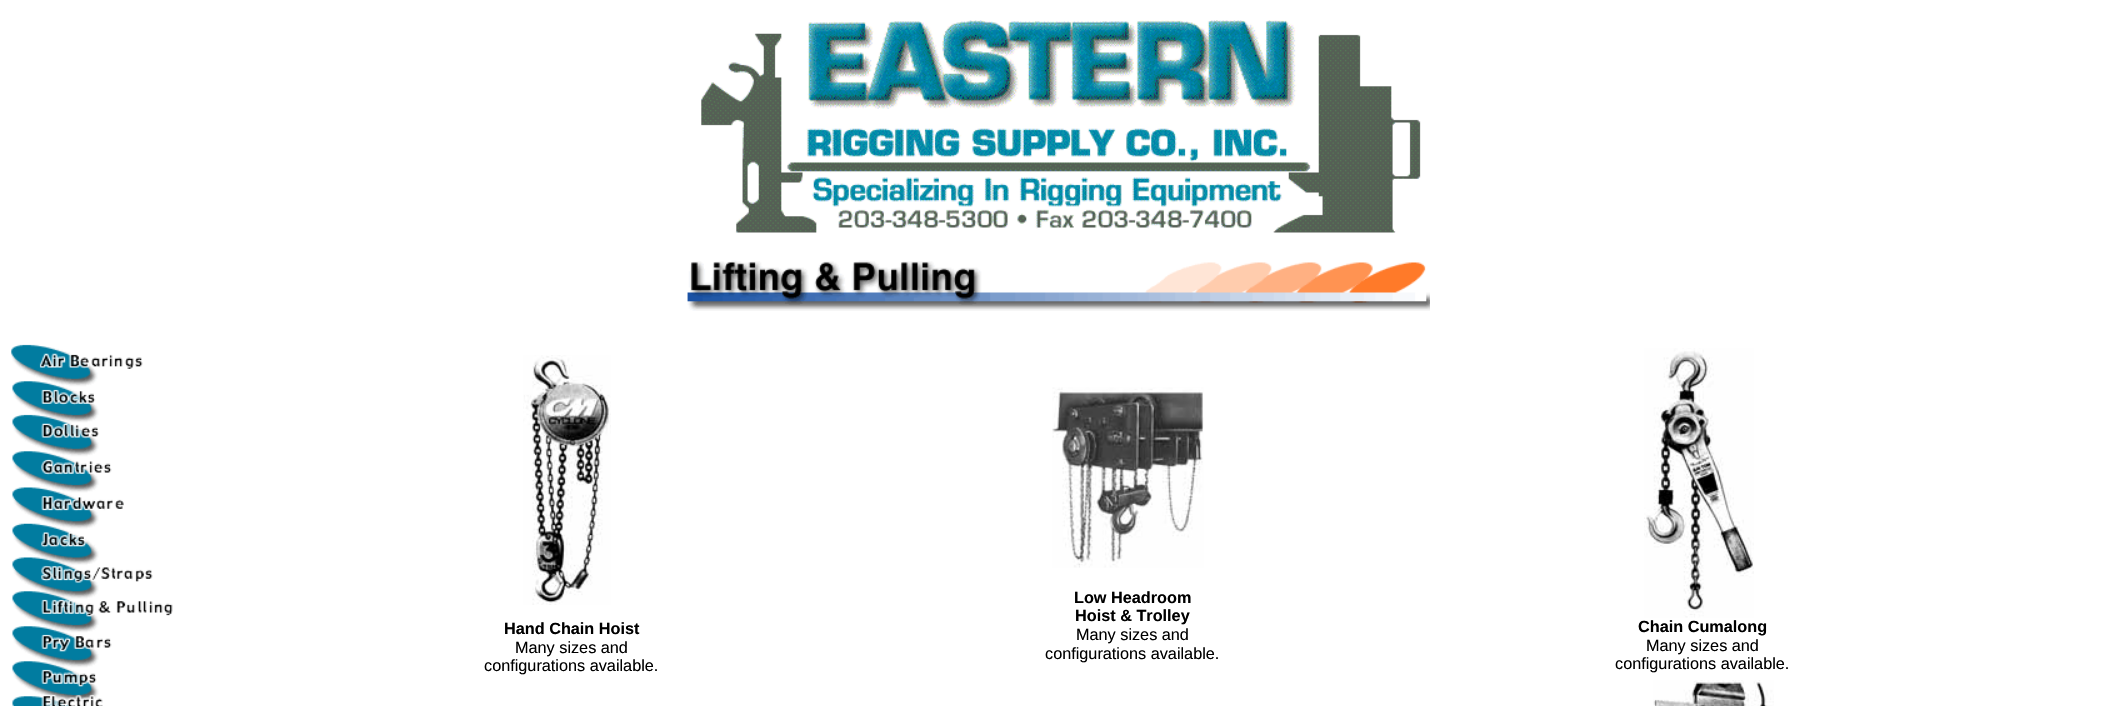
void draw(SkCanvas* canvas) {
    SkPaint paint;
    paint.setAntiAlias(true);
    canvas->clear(0xFFFFFFFF);
    canvas->drawImageRect(SkImages::DeferredFromEncodedData(SkData::MakeFromFileName("img1.png")), SkRect::MakeXYWH(701, 20, 720, 213), SkSamplingOptions());
    canvas->drawImageRect(SkImages::DeferredFromEncodedData(SkData::MakeFromFileName("img2.png")), SkRect::MakeXYWH(687, 260, 743, 51), SkSamplingOptions());
    canvas->drawImageRect(SkImages::DeferredFromEncodedData(SkData::MakeFromFileName("img3.png")), SkRect::MakeXYWH(11, 344, 162, 362), SkSamplingOptions());
    canvas->drawImageRect(SkImages::DeferredFromEncodedData(SkData::MakeFromFileName("img4.png")), SkRect::MakeXYWH(523, 355, 88, 250), SkSamplingOptions());
    SkFont font1(fontMgr->matchFamilyStyle("Liberation Sans", SkFontStyle::Bold()), 16.25f);
    font1.setSubpixel(true);
    paint.setColor(0xFF000000);
    canvas->drawString("Hand Chain Hoist", 504, 634, font1, paint);
    SkFont font2(fontMgr->matchFamilyStyle("Liberation Sans", SkFontStyle::Normal()), 16.25f);
    font2.setSubpixel(true);
    canvas->drawString("Many sizes and", 515, 653, font2, paint);
    canvas->drawString("configurations available.", 484, 671, font2, paint);
    canvas->drawImageRect(SkImages::DeferredFromEncodedData(SkData::MakeFromFileName("img5.png")), SkRect::MakeXYWH(1052, 387, 152, 181), SkSamplingOptions());
    canvas->drawString("Low Headroom", 1074, 603, font1, paint);
    canvas->drawString("Hoist & Trolley", 1075, 621, font1, paint);
    canvas->drawString("Many sizes and", 1076, 640, font2, paint);
    canvas->drawString("configurations available.", 1045, 659, font2, paint);
    canvas->drawImageRect(SkImages::DeferredFromEncodedData(SkData::MakeFromFileName("img6.png")), SkRect::MakeXYWH(1644, 348, 110, 270), SkSamplingOptions());
    canvas->drawString("Chain Cumalong", 1638, 632, font1, paint);
    canvas->drawString("Many sizes and", 1646, 651, font2, paint);
    canvas->drawString("configurations available.", 1615, 669, font2, paint);
    canvas->drawImageRect(SkImages::DeferredFromEncodedData(SkData::MakeFromFileName("img7.png")), SkRect::MakeXYWH(1653, 680, 121, 26), SkSamplingOptions());
}
